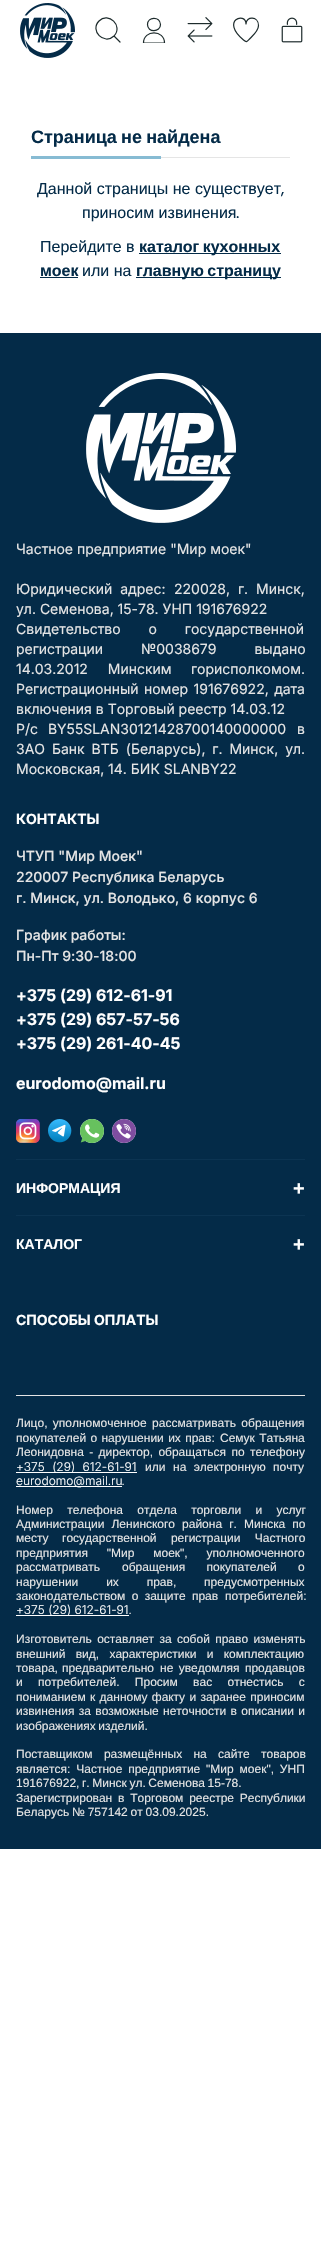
void draw(SkCanvas* canvas) {
    SkPaint paint;
    paint.setAntiAlias(true);
    auto spacedText = [&](const char* s, float x, float y, const SkFont& font, const SkPaint& ink, float letter, float word) {
        std::vector<SkGlyphID> glyphs(font.countText(s, strlen(s), SkTextEncoding::kUTF8));
        std::vector<float> xs(glyphs.size());
        font.textToGlyphs(s, strlen(s), SkTextEncoding::kUTF8, glyphs);
        font.getXPos(glyphs, xs, x);
        float extra = 0;
        for (size_t i = 0; i < glyphs.size(); i++) {
            xs[i] += extra;
            extra += letter + word * (glyphs[i] == font.unicharToGlyph(' '));
        }
        canvas->drawTextBlob(SkTextBlob::MakeFromPosHGlyphs(glyphs, xs, y, font), 0, 0, ink);
    };
    canvas->clear(0xFFFFFFFF);
    canvas->drawImageRect(SkImages::DeferredFromEncodedData(SkData::MakeFromFileName("img1.png")), SkRect::MakeXYWH(20, 3, 55, 55), SkSamplingOptions());
    paint.setStyle(SkPaint::kStroke_Style);
    paint.setStrokeWidth(1.2f);
    paint.setStrokeCap(SkPaint::kRound_Cap);
    paint.setStrokeJoin(SkPaint::kRound_Join);
    paint.setColor(0xFF1D2B2C);
    canvas->drawPath(SkPathBuilder().moveTo(114, 36).cubicTo(104, 45.5f, 89.5f, 30.5f, 99, 21).cubicTo(108.5f, 11.5f, 123.5f, 26, 114, 36).close().moveTo(114, 36).lineTo(120, 42).detach(), paint);
    canvas->save();
    canvas->clipRect(SkRect::MakeXYWH(141, 17, 26, 26));
    canvas->drawPath(SkPathBuilder().moveTo(147.5f, 24.5f).cubicTo(147.5f, 33, 160.5f, 32.5f, 160.5f, 24.5f).cubicTo(160, 16, 147.5f, 16.5f, 147.5f, 24.5f).close().moveTo(143.5f, 43).cubicTo(143.5f, 29.5f, 164.5f, 29.5f, 164.5f, 43).close().detach(), paint);
    canvas->restore();
    canvas->drawImageRect(SkImages::DeferredFromEncodedData(SkData::MakeFromFileName("img2.png")), SkRect::MakeXYWH(187, 17, 26, 26), SkSamplingOptions());
    canvas->drawPath(SkPathBuilder().moveTo(258.5f, 25.5f).cubicTo(258.5f, 30.5f, 253.5f, 35, 250.5f, 38).cubicTo(247, 41.5f, 247, 43, 243.5f, 40).cubicTo(220, 20, 246, 11.5f, 246, 24).cubicTo(246, 16, 258.5f, 16, 258.5f, 25.5f).close().detach(), paint);
    canvas->drawImageRect(SkImages::DeferredFromEncodedData(SkData::MakeFromFileName("img3.png")), SkRect::MakeXYWH(281, 17, 22, 26), SkSamplingOptions());
    paint.setStyle(SkPaint::kFill_Style);
    paint.setColor(0xFFE5E5E5);
    canvas->drawRect(SkRect::MakeXYWH(161, 157, 129, 1), paint);
    SkFont font1(fontMgr->matchFamilyStyle("Liberation Sans", SkFontStyle::Bold()), 18);
    font1.setSubpixel(true);
    paint.setColor(0xFF042B48);
    spacedText("Страница не найдена", 31, 143, font1, paint, 0, -0.75f);
    paint.setColor(0xFF87BBD3);
    canvas->drawRect(SkRect::MakeXYWH(31, 156, 130, 3), paint);
    SkFont font2(fontMgr->matchFamilyStyle("Liberation Sans", SkFontStyle::Normal()), 16);
    font2.setSubpixel(true);
    paint.setColor(0xFF042B48);
    canvas->drawString("Данной страницы не существует", 37, 194, font2, paint);
    SkFont font3(fontMgr->matchFamilyStyle("Poppins", SkFontStyle::Normal()), 16);
    font3.setSubpixel(true);
    canvas->drawString(",", 281, 194, font3, paint);
    canvas->drawString("приносим извинения", 82, 218, font2, paint);
    canvas->drawString(".", 236, 218, font3, paint);
    canvas->drawString("Перейдите в", 40, 252, font2, paint);
    canvas->drawRect(SkRect::MakeXYWH(139, 253, 142, 1), paint);
    SkFont font4(fontMgr->matchFamilyStyle("Liberation Sans", SkFontStyle::Bold()), 16);
    font4.setSubpixel(true);
    spacedText("каталог кухонных", 139, 252, font4, paint, 0, -1);
    canvas->drawString("моек", 40, 276, font4, paint);
    canvas->drawRect(SkRect::MakeXYWH(40, 277, 38, 1), paint);
    canvas->drawString("или на", 82, 276, font2, paint);
    canvas->drawRect(SkRect::MakeXYWH(136, 277, 145, 1), paint);
    spacedText("главную страницу", 136, 276, font4, paint, 0, -1);
    canvas->drawRect(SkRect::MakeXYWH(0, 333, 321, 1516), paint);
    canvas->drawImageRect(SkImages::DeferredFromEncodedData(SkData::MakeFromFileName("img4.png")), SkRect::MakeXYWH(86, 373, 150, 150), SkSamplingOptions());
    SkFont font5(fontMgr->matchFamilyStyle("Inter", SkFontStyle::Normal()), 14);
    font5.setSubpixel(true);
    paint.setColor(0xFFE5E5E5);
    canvas->drawString("Частное предприятие \"Мир моек\"", 16, 554, font5, paint);
    spacedText("Юридический адрес:", 16, 594, font5, paint, 0, 4);
    spacedText("220028, г. Минск,", 174, 594, font5, paint, 0, 4);
    canvas->drawString("ул. Семенова, 15-78. УНП 191676922", 16, 614, font5, paint);
    spacedText("Свидетельство о государственной", 16, 634, font5, paint, 0, 24);
    spacedText("регистрации №0038679 выдано", 16, 654, font5, paint, 0, 34);
    spacedText("14.03.2012 Минским", 16, 674, font5, paint, 0, 16);
    canvas->drawString("горисполкомом.", 191, 674, font5, paint);
    spacedText("Регистрационный номер 191676922, дата", 16, 694, font5, paint, 0, 1.5f);
    canvas->drawString("включения в Торговый реестр 14.03.12", 16, 714, font5, paint);
    spacedText("Р/с BY55SLAN30121428700140000000", 16, 734, font5, paint, 0, 6);
    canvas->drawString("в", 297, 734, font5, paint);
    spacedText("ЗАО Банк ВТБ (Беларусь), г. Минск, ул.", 16, 754, font5, paint, 0, 3);
    canvas->drawString("Московская, 14. БИК SLANBY22", 16, 774, font5, paint);
    SkFont font6(fontMgr->matchFamilyStyle("Inter", SkFontStyle::Bold()), 14);
    font6.setSubpixel(true);
    paint.setColor(0xFFFFFFFF);
    canvas->drawString("КОНТАКТЫ", 16, 824, font6, paint);
    SkFont font7(fontMgr->matchFamilyStyle("Inter", SkFontStyle(500, SkFontStyle::kNormal_Width, SkFontStyle::kUpright_Slant)), 14);
    font7.setSubpixel(true);
    paint.setColor(0xFFE5E5E5);
    canvas->drawString("ЧТУП \"Мир Моек\"", 16, 861, font7, paint);
    canvas->drawString("220007 Республика Беларусь", 16, 882, font7, paint);
    canvas->drawString("г. Минск, ул. Володько, 6 корпус 6", 16, 903, font7, paint);
    canvas->drawString("График работы:", 16, 940, font7, paint);
    canvas->drawString("Пн-Пт 9:30-18:00", 16, 961, font7, paint);
    SkFont font8(fontMgr->matchFamilyStyle("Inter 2", SkFontStyle::Bold()), 16);
    font8.setSubpixel(true);
    paint.setColor(0xFFFFFFFF);
    canvas->drawString("+375 (29) 612-61-91", 16, 1001, font8, paint);
    canvas->drawString("+375 (29) 657-57-56", 16, 1025, font8, paint);
    canvas->drawString("+375 (29) 261-40-45", 16, 1049, font8, paint);
    canvas->drawString("eurodomo@mail.ru", 16, 1089, font8, paint);
    canvas->drawImageRect(SkImages::DeferredFromEncodedData(SkData::MakeFromFileName("img5.png")), SkRect::MakeXYWH(16, 1119, 24, 24), SkSamplingOptions());
    canvas->drawImageRect(SkImages::DeferredFromEncodedData(SkData::MakeFromFileName("img6.png")), SkRect::MakeXYWH(48, 1119, 24, 24), SkSamplingOptions());
    canvas->drawImageRect(SkImages::DeferredFromEncodedData(SkData::MakeFromFileName("img7.png")), SkRect::MakeXYWH(80, 1119, 24, 24), SkSamplingOptions());
    canvas->drawImageRect(SkImages::DeferredFromEncodedData(SkData::MakeFromFileName("img8.png")), SkRect::MakeXYWH(112, 1119, 24, 24), SkSamplingOptions());
    paint.setColor(0xFF0C3452);
    canvas->drawRect(SkRect::MakeXYWH(16, 1159, 289, 1), paint);
    SkFont font9(fontMgr->matchFamilyStyle("Liberation Sans", SkFontStyle::Bold()), 14);
    font9.setSubpixel(true);
    paint.setColor(0xFFFFFFFF);
    canvas->drawString("ИНФОРМАЦИЯ", 16, 1193, font9, paint);
    SkFont font10(fontMgr->matchFamilyStyle("Liberation Sans", SkFontStyle::Bold()), 20);
    font10.setSubpixel(true);
    canvas->drawString("+", 293, 1195, font10, paint);
    paint.setColor(0xFF0C3452);
    canvas->drawRect(SkRect::MakeXYWH(16, 1215, 289, 1), paint);
    paint.setColor(0xFFFFFFFF);
    canvas->drawString("КАТАЛОГ", 16, 1249, font9, paint);
    canvas->drawString("+", 293, 1251, font10, paint);
    canvas->drawString("СПОСОБЫ ОПЛАТЫ", 16, 1325, font6, paint);
    paint.setColor(0xFFE5E5E5);
    canvas->drawRect(SkRect::MakeXYWH(16, 1395, 289, 1), paint);
    SkFont font11(fontMgr->matchFamilyStyle("Liberation Sans", SkFontStyle::Normal()), 12);
    font11.setSubpixel(true);
    spacedText("Лицо, уполномоченное рассматривать обращения", 16, 1427, font11, paint, 0, 2);
    spacedText("покупателей о нарушении их прав:", 16, 1442, font11, paint, 0, 1);
    spacedText("Семук Татьяна", 220, 1442, font11, paint, 0, 1);
    spacedText("Леонидовна - директор, обращаться по телефону", 16, 1456, font11, paint, 0, 2);
    paint.setColor(0xFFFFFFFF);
    canvas->drawRect(SkRect::MakeXYWH(16, 1472, 121, 1), paint);
    SkFont font12(fontMgr->matchFamilyStyle("Inter", SkFontStyle(300, SkFontStyle::kNormal_Width, SkFontStyle::kUpright_Slant)), 12);
    font12.setSubpixel(true);
    spacedText("+375 (29) 612-61-91", 16, 1471, font12, paint, 0, 4);
    paint.setColor(0xFFE5E5E5);
    canvas->drawString("или", 145, 1471, font11, paint);
    spacedText("на электронную почту", 173, 1471, font11, paint, 0, 4);
    paint.setColor(0xFFFFFFFF);
    canvas->drawRect(SkRect::MakeXYWH(16, 1486, 106, 1), paint);
    canvas->drawString("eurodomo@mail.ru", 16, 1485, font12, paint);
    SkFont font13(fontMgr->matchFamilyStyle("Poppins", SkFontStyle(300, SkFontStyle::kNormal_Width, SkFontStyle::kUpright_Slant)), 12);
    font13.setSubpixel(true);
    paint.setColor(0xFFE5E5E5);
    canvas->drawString(".", 122, 1485, font13, paint);
    spacedText("Номер телефона отдела торговли и услуг", 16, 1514, font11, paint, 0, 11);
    spacedText("Администрации Ленинского района г. Минска по", 16, 1528, font11, paint, 0, 3.75f);
    canvas->drawString("месту", 16, 1542, font11, paint);
    spacedText("государственной регистрации Частного", 62, 1542, font11, paint, 0, 11);
    spacedText("предприятия \"Мир моек\", уполномоченного", 16, 1557, font11, paint, 0, 15.5f);
    canvas->drawString("рассматривать", 16, 1571, font11, paint);
    spacedText("обращения покупателей о", 122, 1571, font11, paint, 0, 18);
    spacedText("нарушении их прав, предусмотренных", 16, 1586, font11, paint, 0, 24.5f);
    spacedText("законодательством о защите прав", 16, 1600, font11, paint, 0, 3);
    canvas->drawString("потребителей:", 225, 1600, font11, paint);
    paint.setColor(0xFFFFFFFF);
    canvas->drawRect(SkRect::MakeXYWH(16, 1615, 113, 1), paint);
    canvas->drawString("+375 (29) 612-61-91", 16, 1614, font12, paint);
    paint.setColor(0xFFE5E5E5);
    canvas->drawString(".", 129, 1614, font13, paint);
    spacedText("Изготовитель оставляет за собой право изменять", 16, 1643, font11, paint, 0, 2);
    spacedText("внешний вид, характеристики и комплектацию", 16, 1658, font11, paint, 0, 7);
    canvas->drawString("товара,", 16, 1672, font11, paint);
    canvas->drawString("предварительно", 62, 1672, font11, paint);
    spacedText("не уведомляя продавцов", 160, 1672, font11, paint, 0, 2);
    spacedText("и потребителей. Просим вас отнестись с", 16, 1686, font11, paint, 0, 12);
    spacedText("пониманием к данному факту и заранее приносим", 16, 1701, font11, paint, 0, 1);
    spacedText("извинения за возможные неточности в описании и", 16, 1715, font11, paint, 0, 1);
    spacedText("изображениях изделий.", 16, 1730, font11, paint, 0, -0.75f);
    spacedText("Поставщиком размещённых на сайте товаров", 16, 1758, font11, paint, 0, 8);
    spacedText("является: Частное предприятие \"Мир моек\", УНП", 16, 1773, font11, paint, 0, 2.5f);
    spacedText("191676922, г. Минск ул. Семенова 15-78.", 16, 1787, font11, paint, 0, -0.75f);
    spacedText("Зарегистрирован в Торговом реестре Республики", 16, 1802, font11, paint, 0, 2.5f);
    spacedText("Беларусь № 757142 от 03.09.2025.", 16, 1816, font11, paint, 0, -0.5f);
}
